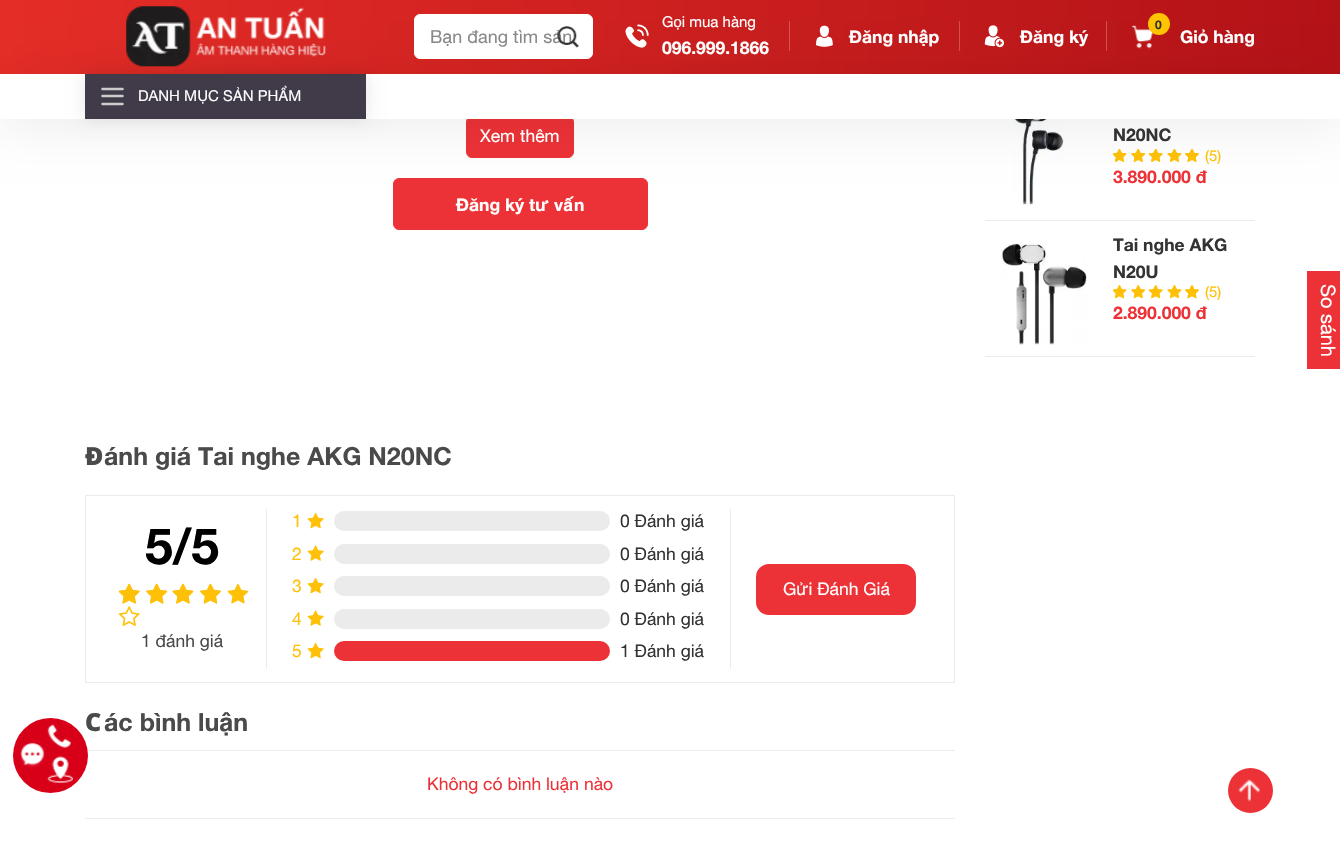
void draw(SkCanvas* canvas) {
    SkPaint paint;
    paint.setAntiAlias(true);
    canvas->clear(0xFFFFFFFF);
    {
        const SkColor colors[] = {0xFFE52D27, 0xFFB31217};
        const float stops[] = {0, 1};
        const SkPoint ends[] = {{0, 37}, {1340, 37}};
        paint.setShader(SkGradientShader::MakeLinear(ends, colors, stops, 2, SkTileMode::kClamp));
        paint.setAlpha(255);
    }
    canvas->drawRect(SkRect::MakeXYWH(0, 0, 1340, 74), paint);
    paint.setShader(nullptr);
    paint.setColor(0xFFED3237);
    canvas->drawRoundRect(SkRect::MakeXYWH(466.5f, 116.5f, 107, 41), 5.5f, 5.5f, paint);
    paint.setStyle(SkPaint::kStroke_Style);
    paint.setStrokeWidth(1);
    canvas->drawRoundRect(SkRect::MakeXYWH(466.5f, 116.5f, 107, 41), 5.5f, 5.5f, paint);
    paint.setStyle(SkPaint::kFill_Style);
    canvas->drawRoundRect(SkRect::MakeXYWH(393.5f, 178.5f, 254, 51), 5.5f, 5.5f, paint);
    paint.setStyle(SkPaint::kStroke_Style);
    canvas->drawRoundRect(SkRect::MakeXYWH(393.5f, 178.5f, 254, 51), 5.5f, 5.5f, paint);
    canvas->drawImageRect(SkImages::DeferredFromEncodedData(SkData::MakeFromFileName("img7.png")), SkRect::MakeXYWH(1012, 119, 52, 87), SkSamplingOptions());
    canvas->drawImageRect(SkImages::DeferredFromEncodedData(SkData::MakeFromFileName("img8.png")), SkRect::MakeXYWH(1113, 149, 14, 13), SkSamplingOptions());
    canvas->drawImageRect(SkImages::DeferredFromEncodedData(SkData::MakeFromFileName("img9.png")), SkRect::MakeXYWH(1113, 149, 14, 13), SkSamplingOptions());
    canvas->drawImageRect(SkImages::DeferredFromEncodedData(SkData::MakeFromFileName("img14.png")), SkRect::MakeXYWH(1131, 149, 15, 13), SkSamplingOptions());
    canvas->drawImageRect(SkImages::DeferredFromEncodedData(SkData::MakeFromFileName("img10.png")), SkRect::MakeXYWH(1131, 149, 15, 13), SkSamplingOptions());
    canvas->drawImageRect(SkImages::DeferredFromEncodedData(SkData::MakeFromFileName("img15.png")), SkRect::MakeXYWH(1148, 149, 15, 13), SkSamplingOptions());
    canvas->drawImageRect(SkImages::DeferredFromEncodedData(SkData::MakeFromFileName("img11.png")), SkRect::MakeXYWH(1148, 149, 15, 13), SkSamplingOptions());
    canvas->drawImageRect(SkImages::DeferredFromEncodedData(SkData::MakeFromFileName("img16.png")), SkRect::MakeXYWH(1167, 149, 15, 13), SkSamplingOptions());
    canvas->drawImageRect(SkImages::DeferredFromEncodedData(SkData::MakeFromFileName("img12.png")), SkRect::MakeXYWH(1167, 149, 15, 13), SkSamplingOptions());
    canvas->drawImageRect(SkImages::DeferredFromEncodedData(SkData::MakeFromFileName("img17.png")), SkRect::MakeXYWH(1185, 149, 14, 13), SkSamplingOptions());
    canvas->drawImageRect(SkImages::DeferredFromEncodedData(SkData::MakeFromFileName("img13.png")), SkRect::MakeXYWH(1185, 149, 14, 13), SkSamplingOptions());
    paint.setStyle(SkPaint::kFill_Style);
    paint.setColor(0x14000000);
    paint.setMaskFilter(SkMaskFilter::MakeBlur(kNormal_SkBlurStyle, 25));
    canvas->drawRect(SkRect::MakeXYWH(0, 81, 1340, 45), paint);
    paint.setMaskFilter(nullptr);
    canvas->drawImageRect(SkImages::DeferredFromEncodedData(SkData::MakeFromFileName("img1.png")), SkRect::MakeXYWH(126, 6, 200, 61), SkSamplingOptions());
    paint.setColor(0xFFFFFFFF);
    canvas->drawRoundRect(SkRect::MakeXYWH(414.5f, 14.5f, 178, 44), 5.5f, 5.5f, paint);
    paint.setStyle(SkPaint::kStroke_Style);
    canvas->drawRoundRect(SkRect::MakeXYWH(414.5f, 14.5f, 178, 44), 5.5f, 5.5f, paint);
    SkFont font1(fontMgr->matchFamilyStyle("Helvetica Neue", SkFontStyle::Normal()), 18);
    font1.setSubpixel(true);
    paint.setStyle(SkPaint::kFill_Style);
    paint.setColor(0xFF888888);
    canvas->drawString("Bạn đang tìm sản", 430, 43, font1, paint);
    canvas->drawImageRect(SkImages::DeferredFromEncodedData(SkData::MakeFromFileName("img2.png")), SkRect::MakeXYWH(557, 26, 23, 22), SkSamplingOptions());
    canvas->drawImageRect(SkImages::DeferredFromEncodedData(SkData::MakeFromFileName("img3.png")), SkRect::MakeXYWH(625, 24, 24, 24), SkSamplingOptions());
    SkFont font2(fontMgr->matchFamilyStyle("Helvetica Neue", SkFontStyle::Normal()), 15);
    font2.setSubpixel(true);
    paint.setColor(0xFFFFFFFF);
    canvas->drawString("Gọi mua hàng", 662, 27, font2, paint);
    SkFont font3(fontMgr->matchFamilyStyle("Helvetica Neue", SkFontStyle::Bold()), 17.5f);
    font3.setSubpixel(true);
    canvas->drawString("096.999.1866", 662, 54, font3, paint);
    paint.setColor(0xFFD55354);
    canvas->drawRect(SkRect::MakeXYWH(789, 21, 1, 30), paint);
    canvas->drawImageRect(SkImages::DeferredFromEncodedData(SkData::MakeFromFileName("img4.png")), SkRect::MakeXYWH(815, 25, 18, 22), SkSamplingOptions());
    paint.setColor(0xFFFFFFFF);
    canvas->drawString("Đăng nhập", 849, 43, font3, paint);
    paint.setColor(0xFFCF5152);
    canvas->drawRect(SkRect::MakeXYWH(959, 21, 1, 30), paint);
    canvas->drawImageRect(SkImages::DeferredFromEncodedData(SkData::MakeFromFileName("img5.png")), SkRect::MakeXYWH(984, 25, 20, 23), SkSamplingOptions());
    paint.setColor(0xFFFFFFFF);
    canvas->drawString("Đăng ký", 1020, 43, font3, paint);
    paint.setColor(0xFFCC4F51);
    canvas->drawRect(SkRect::MakeXYWH(1106, 21, 1, 30), paint);
    canvas->drawImageRect(SkImages::DeferredFromEncodedData(SkData::MakeFromFileName("img6.png")), SkRect::MakeXYWH(1131, 25, 22, 24), SkSamplingOptions());
    paint.setColor(0xFFFFC400);
    canvas->drawCircle(1159, 24, 11, paint);
    SkFont font4(fontMgr->matchFamilyStyle("Helvetica Neue", SkFontStyle::Bold()), 12);
    font4.setSubpixel(true);
    paint.setColor(0xFF333333);
    canvas->drawString("0", 1155, 29, font4, paint);
    paint.setColor(0xFFFFFFFF);
    canvas->drawString("Giỏ hàng", 1180, 43, font3, paint);
    canvas->drawRect(SkRect::MakeXYWH(0, 74, 1340, 45), paint);
    paint.setColor(0x1A000000);
    paint.setMaskFilter(SkMaskFilter::MakeBlur(kNormal_SkBlurStyle, 9));
    canvas->drawRect(SkRect::MakeXYWH(85, 74, 281, 45), paint);
    paint.setMaskFilter(nullptr);
    paint.setColor(0xFF413B49);
    canvas->drawRect(SkRect::MakeXYWH(85, 74, 281, 45), paint);
    paint.setStyle(SkPaint::kStroke_Style);
    paint.setStrokeWidth(2.5f);
    paint.setStrokeCap(SkPaint::kRound_Cap);
    paint.setStrokeJoin(SkPaint::kRound_Join);
    paint.setColor(0xFFCCCCCC);
    canvas->drawPath(SkPathBuilder().moveTo(102.5f, 96).lineTo(122.5f, 96).moveTo(102.5f, 89).lineTo(122.5f, 89).moveTo(102.5f, 104).lineTo(122.5f, 104).detach(), paint);
    paint.setStyle(SkPaint::kFill_Style);
    paint.setColor(0xFFFFFFFF);
    canvas->drawString("DANH MỤC SẢN PHẨM", 138, 101, font2, paint);
    SkFont font5(fontMgr->matchFamilyStyle("Helvetica Neue", SkFontStyle::Normal()), 17.5f);
    font5.setSubpixel(true);
    canvas->drawString("Xem thêm", 480, 142, font5, paint);
    canvas->drawString("Đăng ký tư vấn", 456, 211, font3, paint);
    paint.setColor(0xFFEBEBEB);
    canvas->drawRect(SkRect::MakeXYWH(985, 220, 270, 1), paint);
    paint.setColor(0xFF333333);
    canvas->drawString("N20NC", 1113, 141, font3, paint);
    paint.setColor(0xFFFFC107);
    canvas->drawString("(5)", 1205, 161, font2, paint);
    paint.setColor(0xFFED3237);
    canvas->drawString("3.890.000 đ", 1113, 183, font3, paint);
    paint.setColor(0xFFEBEBEB);
    canvas->drawRect(SkRect::MakeXYWH(985, 356, 270, 1), paint);
    canvas->drawImageRect(SkImages::DeferredFromEncodedData(SkData::MakeFromFileName("img18.png")), SkRect::MakeXYWH(1001, 243, 86, 102), SkSamplingOptions());
    canvas->save();
    canvas->clipRect(SkRect::MakeXYWH(1113, 231, 142, 53));
    paint.setColor(0xFF333333);
    canvas->drawString("Tai nghe AKG", 1113, 251, font3, paint);
    canvas->restore();
    canvas->drawString("N20U", 1113, 278, font3, paint);
    canvas->drawImageRect(SkImages::DeferredFromEncodedData(SkData::MakeFromFileName("img19.png")), SkRect::MakeXYWH(1113, 285, 14, 14), SkSamplingOptions());
    canvas->drawImageRect(SkImages::DeferredFromEncodedData(SkData::MakeFromFileName("img20.png")), SkRect::MakeXYWH(1113, 285, 14, 14), SkSamplingOptions());
    canvas->drawImageRect(SkImages::DeferredFromEncodedData(SkData::MakeFromFileName("img25.png")), SkRect::MakeXYWH(1131, 285, 15, 14), SkSamplingOptions());
    canvas->drawImageRect(SkImages::DeferredFromEncodedData(SkData::MakeFromFileName("img21.png")), SkRect::MakeXYWH(1131, 285, 15, 14), SkSamplingOptions());
    canvas->drawImageRect(SkImages::DeferredFromEncodedData(SkData::MakeFromFileName("img26.png")), SkRect::MakeXYWH(1148, 285, 15, 14), SkSamplingOptions());
    canvas->drawImageRect(SkImages::DeferredFromEncodedData(SkData::MakeFromFileName("img22.png")), SkRect::MakeXYWH(1148, 285, 15, 14), SkSamplingOptions());
    canvas->drawImageRect(SkImages::DeferredFromEncodedData(SkData::MakeFromFileName("img27.png")), SkRect::MakeXYWH(1167, 285, 15, 14), SkSamplingOptions());
    canvas->drawImageRect(SkImages::DeferredFromEncodedData(SkData::MakeFromFileName("img23.png")), SkRect::MakeXYWH(1167, 285, 15, 14), SkSamplingOptions());
    canvas->drawImageRect(SkImages::DeferredFromEncodedData(SkData::MakeFromFileName("img28.png")), SkRect::MakeXYWH(1185, 285, 14, 14), SkSamplingOptions());
    canvas->drawImageRect(SkImages::DeferredFromEncodedData(SkData::MakeFromFileName("img24.png")), SkRect::MakeXYWH(1185, 285, 14, 14), SkSamplingOptions());
    paint.setColor(0xFFFFC107);
    canvas->drawString("(5)", 1205, 297, font2, paint);
    paint.setColor(0xFFED3237);
    canvas->drawString("2.890.000 đ", 1113, 319, font3, paint);
    SkFont font6(fontMgr->matchFamilyStyle("Noto Sans", SkFontStyle(900, SkFontStyle::kNormal_Width, SkFontStyle::kUpright_Slant)), 25);
    font6.setSubpixel(true);
    paint.setColor(0xFF4A4A4A);
    canvas->drawString("Đ", 85, 465, font6, paint);
    SkFont font7(fontMgr->matchFamilyStyle("Helvetica Neue", SkFontStyle::Bold()), 25);
    font7.setSubpixel(true);
    canvas->drawString("ánh giá Tai nghe AKG N20NC", 104, 465, font7, paint);
    paint.setStyle(SkPaint::kStroke_Style);
    paint.setStrokeWidth(1);
    paint.setStrokeCap(SkPaint::kButt_Cap);
    paint.setStrokeJoin(SkPaint::kMiter_Join);
    paint.setColor(0xFFEBEBEB);
    canvas->drawRect(SkRect::MakeXYWH(85.5f, 495.5f, 869, 187), paint);
    paint.setStyle(SkPaint::kFill_Style);
    canvas->drawRect(SkRect::MakeXYWH(266, 509, 1, 160), paint);
    SkFont font8(fontMgr->matchFamilyStyle("Helvetica Neue", SkFontStyle::Bold()), 50);
    font8.setSubpixel(true);
    paint.setColor(0xFF000000);
    canvas->drawString("5/5", 145, 564, font8, paint);
    canvas->drawImageRect(SkImages::DeferredFromEncodedData(SkData::MakeFromFileName("img29.png")), SkRect::MakeXYWH(118, 583, 22, 21), SkSamplingOptions());
    canvas->drawImageRect(SkImages::DeferredFromEncodedData(SkData::MakeFromFileName("img30.png")), SkRect::MakeXYWH(146, 583, 22, 21), SkSamplingOptions());
    canvas->drawImageRect(SkImages::DeferredFromEncodedData(SkData::MakeFromFileName("img31.png")), SkRect::MakeXYWH(172, 583, 22, 21), SkSamplingOptions());
    canvas->drawImageRect(SkImages::DeferredFromEncodedData(SkData::MakeFromFileName("img32.png")), SkRect::MakeXYWH(200, 583, 21, 21), SkSamplingOptions());
    canvas->drawImageRect(SkImages::DeferredFromEncodedData(SkData::MakeFromFileName("img33.png")), SkRect::MakeXYWH(119, 584, 21, 20), SkSamplingOptions());
    canvas->drawImageRect(SkImages::DeferredFromEncodedData(SkData::MakeFromFileName("img34.png")), SkRect::MakeXYWH(146, 584, 22, 20), SkSamplingOptions());
    canvas->drawImageRect(SkImages::DeferredFromEncodedData(SkData::MakeFromFileName("img35.png")), SkRect::MakeXYWH(172, 584, 22, 20), SkSamplingOptions());
    canvas->drawImageRect(SkImages::DeferredFromEncodedData(SkData::MakeFromFileName("img36.png")), SkRect::MakeXYWH(200, 584, 21, 20), SkSamplingOptions());
    canvas->drawImageRect(SkImages::DeferredFromEncodedData(SkData::MakeFromFileName("img37.png")), SkRect::MakeXYWH(227, 584, 22, 20), SkSamplingOptions());
    canvas->drawImageRect(SkImages::DeferredFromEncodedData(SkData::MakeFromFileName("img38.png")), SkRect::MakeXYWH(118, 606, 22, 20), SkSamplingOptions());
    paint.setColor(0xFF4A4A4A);
    canvas->drawString("1 đánh giá", 141, 647, font5, paint);
    paint.setColor(0xFFEBEBEB);
    canvas->drawRect(SkRect::MakeXYWH(730, 509, 1, 160), paint);
    paint.setColor(0xFFFFC107);
    canvas->drawString("1", 292, 527, font5, paint);
    canvas->drawImageRect(SkImages::DeferredFromEncodedData(SkData::MakeFromFileName("img39.png")), SkRect::MakeXYWH(307, 512, 17, 17), SkSamplingOptions());
    paint.setColor(0xFFEBEBEB);
    canvas->drawRoundRect(SkRect::MakeXYWH(334, 511, 276, 20), 10, 10, paint);
    paint.setColor(0xFF333333);
    canvas->drawString("0 Đánh giá", 620, 527, font5, paint);
    paint.setColor(0xFFFFC107);
    canvas->drawString("2", 292, 560, font5, paint);
    canvas->drawImageRect(SkImages::DeferredFromEncodedData(SkData::MakeFromFileName("img40.png")), SkRect::MakeXYWH(307, 545, 17, 16), SkSamplingOptions());
    paint.setColor(0xFFEBEBEB);
    canvas->drawRoundRect(SkRect::MakeXYWH(334, 544, 276, 20), 10, 10, paint);
    paint.setColor(0xFF333333);
    canvas->drawString("0 Đánh giá", 620, 560, font5, paint);
    paint.setColor(0xFFFFC107);
    canvas->drawString("3", 292, 592, font5, paint);
    canvas->drawImageRect(SkImages::DeferredFromEncodedData(SkData::MakeFromFileName("img39.png")), SkRect::MakeXYWH(307, 577, 17, 17), SkSamplingOptions());
    paint.setColor(0xFFEBEBEB);
    canvas->drawRoundRect(SkRect::MakeXYWH(334, 576, 276, 20), 10, 10, paint);
    paint.setColor(0xFF333333);
    canvas->drawString("0 Đánh giá", 620, 592, font5, paint);
    paint.setColor(0xFFFFC107);
    canvas->drawString("4", 292, 625, font5, paint);
    canvas->drawImageRect(SkImages::DeferredFromEncodedData(SkData::MakeFromFileName("img40.png")), SkRect::MakeXYWH(307, 610, 17, 16), SkSamplingOptions());
    paint.setColor(0xFFEBEBEB);
    canvas->drawRoundRect(SkRect::MakeXYWH(334, 609, 276, 20), 10, 10, paint);
    paint.setColor(0xFF333333);
    canvas->drawString("0 Đánh giá", 620, 625, font5, paint);
    paint.setColor(0xFFFFC107);
    canvas->drawString("5", 292, 657, font5, paint);
    canvas->drawImageRect(SkImages::DeferredFromEncodedData(SkData::MakeFromFileName("img39.png")), SkRect::MakeXYWH(307, 642, 17, 17), SkSamplingOptions());
    paint.setColor(0xFFED3237);
    canvas->drawRoundRect(SkRect::MakeXYWH(334, 641, 276, 20), 10, 10, paint);
    paint.setColor(0xFF333333);
    canvas->drawString("1 Đánh giá", 620, 657, font5, paint);
    paint.setColor(0xFFED3237);
    canvas->drawRoundRect(SkRect::MakeXYWH(756, 564, 160, 51), 13, 13, paint);
    paint.setColor(0xFFFFFFFF);
    canvas->drawString("Gửi Đánh Giá", 783, 595, font5, paint);
    paint.setColor(0xFF4A4A4A);
    canvas->drawString("C", 85, 731, font6, paint);
    canvas->drawString("ác bình luận", 104, 731, font7, paint);
    paint.setColor(0xFFECECEC);
    canvas->drawRect(SkRect::MakeXYWH(85, 750, 870, 1), paint);
    canvas->drawRect(SkRect::MakeXYWH(85, 818, 870, 1), paint);
    paint.setColor(0xFFED3237);
    canvas->drawString("Không có bình luận nào", 427, 790, font5, paint);
    canvas->drawRect(SkRect::MakeXYWH(1307, 271, 33, 98), paint);
    SkFont font9(fontMgr->matchFamilyStyle("Helvetica Neue", SkFontStyle::Normal()), 20);
    font9.setSubpixel(true);
    paint.setColor(0xFFFFFFFF);
    canvas->save();
    canvas->rotate(90, 1321, 284);
    canvas->drawString("So sánh", 1321, 284, font9, paint);
    canvas->restore();
    paint.setColor(0xFFD70018);
    canvas->drawCircle(50.5f, 755.5f, 37.5f, paint);
    canvas->drawImageRect(SkImages::DeferredFromEncodedData(SkData::MakeFromFileName("img41.png")), SkRect::MakeXYWH(20, 724, 54, 59), SkSamplingOptions());
    paint.setColor(0xFFED3237);
    canvas->drawCircle(1250.5f, 790.5f, 22.5f, paint);
    canvas->drawImageRect(SkImages::DeferredFromEncodedData(SkData::MakeFromFileName("img42.png")), SkRect::MakeXYWH(1238, 779, 22, 23), SkSamplingOptions());
}
